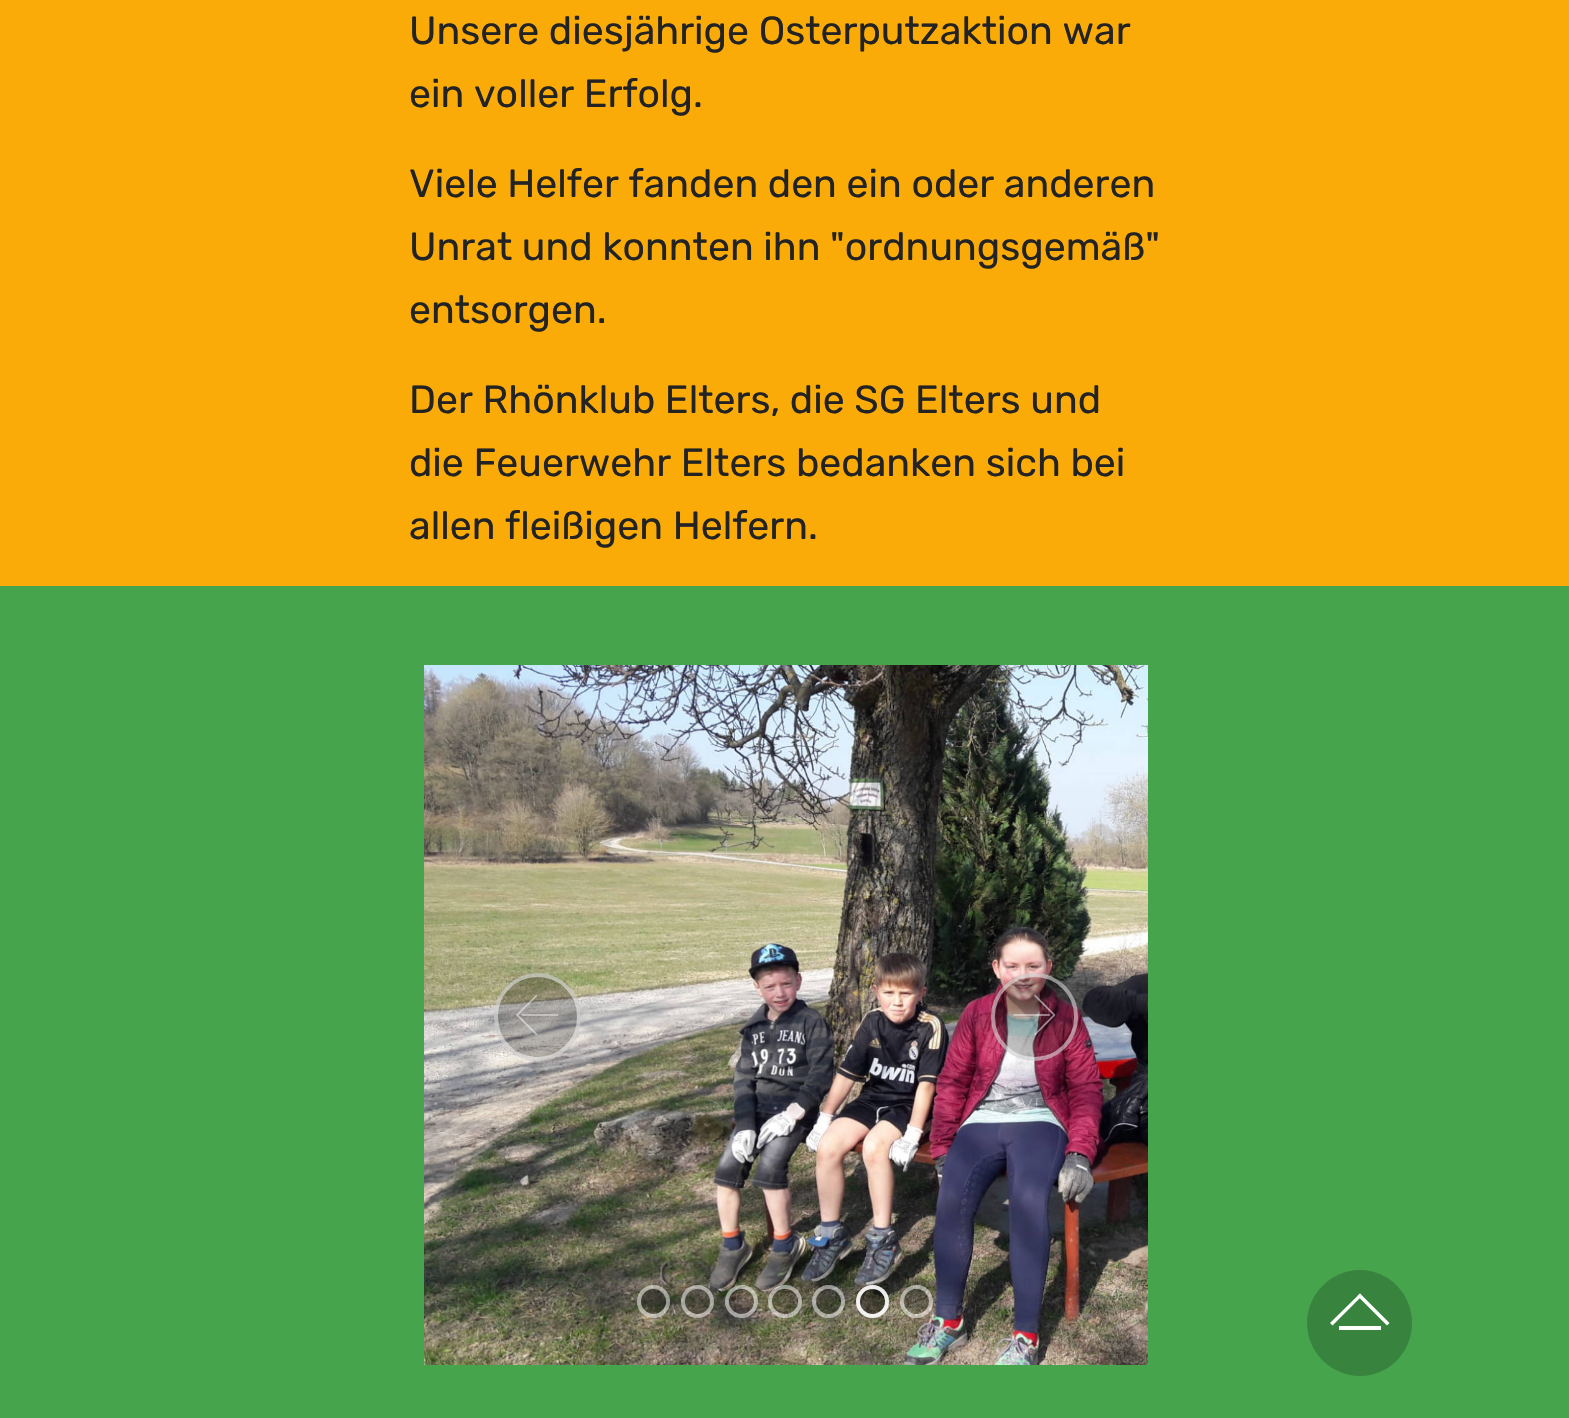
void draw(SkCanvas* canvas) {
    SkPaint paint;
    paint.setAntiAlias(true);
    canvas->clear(0xFFFAAB07);
    SkFont font1(fontMgr->matchFamilyStyle("Rubik", SkFontStyle::Normal()), 39.25f);
    font1.setSubpixel(true);
    paint.setColor(0xFF232323);
    canvas->drawString("Unsere diesjährige Osterputzaktion war", 409, 44, font1, paint);
    canvas->drawString("ein voller Erfolg.", 409, 107, font1, paint);
    canvas->drawString("Viele Helfer fanden den ein oder anderen", 409, 197, font1, paint);
    canvas->drawString("Unrat und konnten ihn \"ordnungsgemäß\"", 409, 260, font1, paint);
    canvas->drawString("entsorgen.", 409, 323, font1, paint);
    canvas->drawString("Der Rhönklub Elters, die SG Elters und", 409, 413, font1, paint);
    canvas->drawString("die Feuerwehr Elters bedanken sich bei", 409, 476, font1, paint);
    canvas->drawString("allen fleißigen Helfern.", 409, 539, font1, paint);
    paint.setColor(0xFF46A44C);
    canvas->drawRect(SkRect::MakeXYWH(0, 586, 1569, 832), paint);
    canvas->drawImageRect(SkImages::DeferredFromEncodedData(SkData::MakeFromFileName("img1.png")), SkRect::MakeXYWH(424, 665, 724, 700), SkSamplingOptions());
    paint.setColor(0x40000000);
    canvas->drawRoundRect(SkRect::MakeXYWH(494, 973, 87, 88), 43.5f, 43.5f, paint);
    paint.setStyle(SkPaint::kStroke_Style);
    paint.setStrokeWidth(4);
    paint.setColor(0x80FFFFFF);
    canvas->drawRoundRect(SkRect::MakeXYWH(496, 975, 83, 84), 41.5f, 41.5f, paint);
    canvas->drawImageRect(SkImages::DeferredFromEncodedData(SkData::MakeFromFileName("img2.png")), SkRect::MakeXYWH(516, 994, 43, 41), SkSamplingOptions());
    paint.setStyle(SkPaint::kFill_Style);
    paint.setColor(0x40000000);
    canvas->drawRoundRect(SkRect::MakeXYWH(991, 973, 87, 88), 43.5f, 43.5f, paint);
    paint.setStyle(SkPaint::kStroke_Style);
    paint.setColor(0x80FFFFFF);
    canvas->drawRoundRect(SkRect::MakeXYWH(993, 975, 83, 84), 41.5f, 41.5f, paint);
    canvas->drawImageRect(SkImages::DeferredFromEncodedData(SkData::MakeFromFileName("img3.png")), SkRect::MakeXYWH(1013, 994, 43, 41), SkSamplingOptions());
    paint.setStyle(SkPaint::kFill_Style);
    paint.setColor(0x40000000);
    canvas->drawCircle(654, 1301, 13, paint);
    paint.setStyle(SkPaint::kStroke_Style);
    paint.setColor(0x80FFFFFF);
    canvas->drawCircle(653.5f, 1301.5f, 14.5f, paint);
    paint.setStyle(SkPaint::kFill_Style);
    paint.setColor(0x40000000);
    canvas->drawRoundRect(SkRect::MakeXYWH(684, 1288, 27, 26), 13, 13, paint);
    paint.setStyle(SkPaint::kStroke_Style);
    paint.setColor(0x80FFFFFF);
    canvas->drawCircle(697.5f, 1301.5f, 14.5f, paint);
    paint.setStyle(SkPaint::kFill_Style);
    paint.setColor(0x40000000);
    canvas->drawCircle(741, 1301, 13, paint);
    paint.setStyle(SkPaint::kStroke_Style);
    paint.setColor(0x80FFFFFF);
    canvas->drawCircle(741.5f, 1301.5f, 14.5f, paint);
    paint.setStyle(SkPaint::kFill_Style);
    paint.setColor(0x40000000);
    canvas->drawCircle(785, 1301, 13, paint);
    paint.setStyle(SkPaint::kStroke_Style);
    paint.setColor(0x80FFFFFF);
    canvas->drawRoundRect(SkRect::MakeXYWH(770, 1287, 30, 29), 14.5f, 14.5f, paint);
    paint.setStyle(SkPaint::kFill_Style);
    paint.setColor(0x40000000);
    canvas->drawCircle(829, 1301, 13, paint);
    paint.setStyle(SkPaint::kStroke_Style);
    paint.setColor(0x80FFFFFF);
    canvas->drawCircle(828.5f, 1301.5f, 14.5f, paint);
    paint.setStyle(SkPaint::kFill_Style);
    paint.setColor(0x73000000);
    canvas->drawRoundRect(SkRect::MakeXYWH(859, 1288, 27, 26), 13, 13, paint);
    paint.setStyle(SkPaint::kStroke_Style);
    paint.setColor(0xE6FFFFFF);
    canvas->drawCircle(872.5f, 1301.5f, 14.5f, paint);
    paint.setStyle(SkPaint::kFill_Style);
    paint.setColor(0x40000000);
    canvas->drawCircle(916, 1301, 13, paint);
    paint.setStyle(SkPaint::kStroke_Style);
    paint.setColor(0x80FFFFFF);
    canvas->drawCircle(916.5f, 1301.5f, 14.5f, paint);
    paint.setStyle(SkPaint::kFill_Style);
    paint.setColor(0xFF38833D);
    canvas->drawPath(SkPathBuilder().moveTo(1360, 1376).cubicTo(1331, 1376, 1307, 1352, 1307, 1323).cubicTo(1307, 1294, 1331, 1270, 1360, 1270).cubicTo(1389, 1270, 1412, 1294, 1412, 1323).cubicTo(1412, 1352, 1389, 1376, 1360, 1376).close().detach(), paint);
    paint.setColor(0xFFFFFFFF);
    canvas->drawPath(SkPathBuilder().moveTo(1330, 1323).lineTo(1360, 1293.5f).lineTo(1362, 1296).lineTo(1332.5f, 1325.5f).close().detach(), paint);
    canvas->drawPath(SkPathBuilder().moveTo(1357.5f, 1296).lineTo(1360, 1293.5f).lineTo(1389.5f, 1323).lineTo(1387, 1325.5f).close().detach(), paint);
    canvas->drawRect(SkRect::MakeXYWH(1339, 1326, 42, 4), paint);
}
